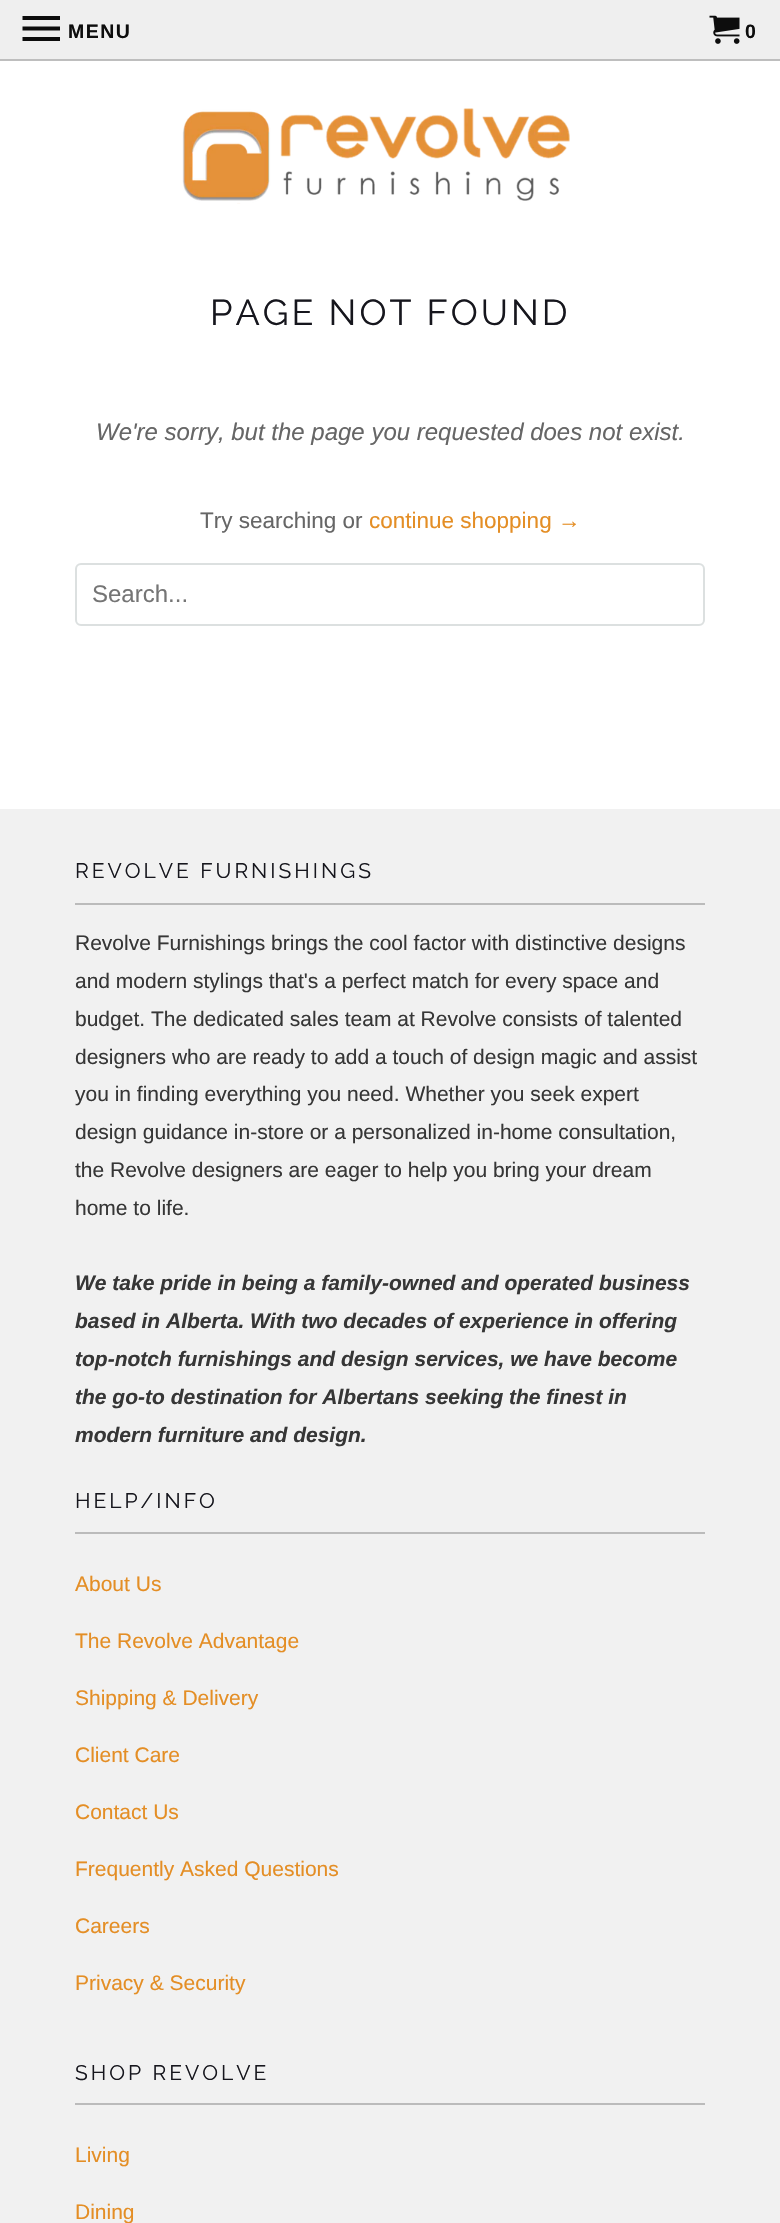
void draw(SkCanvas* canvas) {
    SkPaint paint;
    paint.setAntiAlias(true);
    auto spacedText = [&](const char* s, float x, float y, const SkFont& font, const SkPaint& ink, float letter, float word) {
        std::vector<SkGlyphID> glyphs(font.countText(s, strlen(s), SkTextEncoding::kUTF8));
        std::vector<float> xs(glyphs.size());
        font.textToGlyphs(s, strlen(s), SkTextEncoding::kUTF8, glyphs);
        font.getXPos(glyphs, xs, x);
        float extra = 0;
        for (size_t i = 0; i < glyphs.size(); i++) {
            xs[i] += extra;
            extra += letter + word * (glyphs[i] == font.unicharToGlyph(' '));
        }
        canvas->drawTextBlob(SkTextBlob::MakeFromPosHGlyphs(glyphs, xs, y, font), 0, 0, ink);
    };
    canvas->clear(0xFFFFFFFF);
    paint.setColor(0xFFEFEFEF);
    canvas->drawRect(SkRect::MakeXYWH(0, 0, 780, 59), paint);
    paint.setColor(0xFFBEBEBE);
    canvas->drawRect(SkRect::MakeXYWH(0, 59, 780, 2), paint);
    paint.setColor(0xFF0D0D0D);
    canvas->drawPath(SkPathBuilder().moveTo(22.5f, 41).lineTo(60, 41).lineTo(60, 37).lineTo(22.5f, 37).close().moveTo(22.5f, 30.5f).lineTo(60, 30.5f).lineTo(60, 26.5f).lineTo(22.5f, 26.5f).close().moveTo(22.5f, 16).lineTo(22.5f, 20).lineTo(60, 20).lineTo(60, 16).close().detach(), paint);
    SkFont font1(fontMgr->matchFamilyStyle("Liberation Sans", SkFontStyle::Bold()), 19.5f);
    font1.setSubpixel(true);
    spacedText("MENU", 68, 38, font1, paint, 1.5f, 0);
    canvas->drawImageRect(SkImages::DeferredFromEncodedData(SkData::MakeFromFileName("img1.png")), SkRect::MakeXYWH(709, 15, 31, 29), SkSamplingOptions());
    spacedText("0", 745, 38, font1, paint, 1.5f, 0);
    canvas->drawImageRect(SkImages::DeferredFromEncodedData(SkData::MakeFromFileName("img2.png")), SkRect::MakeXYWH(182, 108, 388, 96), SkSamplingOptions());
    SkFont font2(fontMgr->matchFamilyStyle("Raleway", SkFontStyle::Normal()), 36);
    font2.setSubpixel(true);
    paint.setColor(0xFF16161D);
    spacedText("PAGE NOT FOUND", 210, 325, font2, paint, 3, 0);
    SkFont font3(fontMgr->matchFamilyStyle("Liberation Sans", SkFontStyle::Italic()), 24);
    font3.setSubpixel(true);
    paint.setColor(0xFF666666);
    canvas->drawString("We're sorry, but the page you requested does not exist.", 96, 440, font3, paint);
    SkFont font4(fontMgr->matchFamilyStyle("Liberation Sans", SkFontStyle::Normal()), 22.5f);
    font4.setSubpixel(true);
    canvas->drawString("Try searching or", 200, 528, font4, paint);
    paint.setColor(0xFFE48E25);
    canvas->drawString("continue shopping →", 369, 528, font4, paint);
    paint.setStyle(SkPaint::kStroke_Style);
    paint.setStrokeWidth(2);
    paint.setColor(0xFFDCE0E0);
    canvas->drawRoundRect(SkRect::MakeXYWH(76, 564, 628, 61), 5, 5, paint);
    SkFont font5(fontMgr->matchFamilyStyle("Liberation Sans", SkFontStyle::Normal()), 24);
    font5.setSubpixel(true);
    paint.setStyle(SkPaint::kFill_Style);
    paint.setColor(0xFF757575);
    canvas->drawString("Search...", 92, 602, font5, paint);
    paint.setColor(0xFFF1F1F1);
    canvas->drawRect(SkRect::MakeXYWH(0, 809, 780, 1414), paint);
    paint.setColor(0xFFBBBBBB);
    canvas->drawRect(SkRect::MakeXYWH(75, 903, 630, 2), paint);
    SkFont font6(fontMgr->matchFamilyStyle("Raleway", SkFontStyle::Normal()), 21);
    font6.setSubpixel(true);
    paint.setColor(0xFF16161D);
    spacedText("REVOLVE FURNISHINGS", 75, 878, font6, paint, 3, 0);
    SkFont font7(fontMgr->matchFamilyStyle("Liberation Sans", SkFontStyle::Normal()), 21);
    font7.setSubpixel(true);
    paint.setColor(0xFF363636);
    canvas->drawString("Revolve Furnishings brings the cool factor with distinctive designs", 75, 950, font7, paint);
    canvas->drawString("and modern stylings that's a perfect match for every space and", 75, 988, font7, paint);
    canvas->drawString("budget. The dedicated sales team at Revolve consists of talented", 75, 1026, font7, paint);
    canvas->drawString("designers who are ready to add a touch of design magic and assist", 75, 1064, font7, paint);
    canvas->drawString("you in finding everything you need. Whether you seek expert", 75, 1101, font7, paint);
    canvas->drawString("design guidance in-store or a personalized in-home consultation,", 75, 1139, font7, paint);
    canvas->drawString("the Revolve designers are eager to help you bring your dream", 75, 1177, font7, paint);
    canvas->drawString("home to life.", 75, 1215, font7, paint);
    SkFont font8(fontMgr->matchFamilyStyle("Liberation Sans", SkFontStyle::BoldItalic()), 21);
    font8.setSubpixel(true);
    canvas->drawString("We take pride in being a family-owned and operated business", 75, 1290, font8, paint);
    canvas->drawString("based in Alberta. With two decades of experience in offering", 75, 1328, font8, paint);
    canvas->drawString("top-notch furnishings and design services, we have become", 75, 1366, font8, paint);
    canvas->drawString("the go-to destination for Albertans seeking the finest in", 75, 1404, font8, paint);
    canvas->drawString("modern furniture and design.", 75, 1442, font8, paint);
    paint.setColor(0xFFBBBBBB);
    canvas->drawRect(SkRect::MakeXYWH(75, 1532, 630, 2), paint);
    paint.setColor(0xFF16161D);
    spacedText("HELP/INFO", 75, 1508, font6, paint, 3, 0);
    paint.setColor(0xFFE48E25);
    canvas->drawString("About Us", 75, 1591, font7, paint);
    canvas->drawString("The Revolve Advantage", 75, 1648, font7, paint);
    canvas->drawString("Shipping & Delivery", 75, 1705, font7, paint);
    canvas->drawString("Client Care", 75, 1762, font7, paint);
    canvas->drawString("Contact Us", 75, 1819, font7, paint);
    canvas->drawString("Frequently Asked Questions", 75, 1876, font7, paint);
    canvas->drawString("Careers", 75, 1933, font7, paint);
    canvas->drawString("Privacy & Security", 75, 1990, font7, paint);
    paint.setColor(0xFFBBBBBB);
    canvas->drawRect(SkRect::MakeXYWH(75, 2103, 630, 2), paint);
    paint.setColor(0xFF16161D);
    spacedText("SHOP REVOLVE", 75, 2080, font6, paint, 3, 0);
    paint.setColor(0xFFE48E25);
    canvas->drawString("Living", 75, 2162, font7, paint);
    canvas->drawString("Dining", 75, 2219, font7, paint);
}
